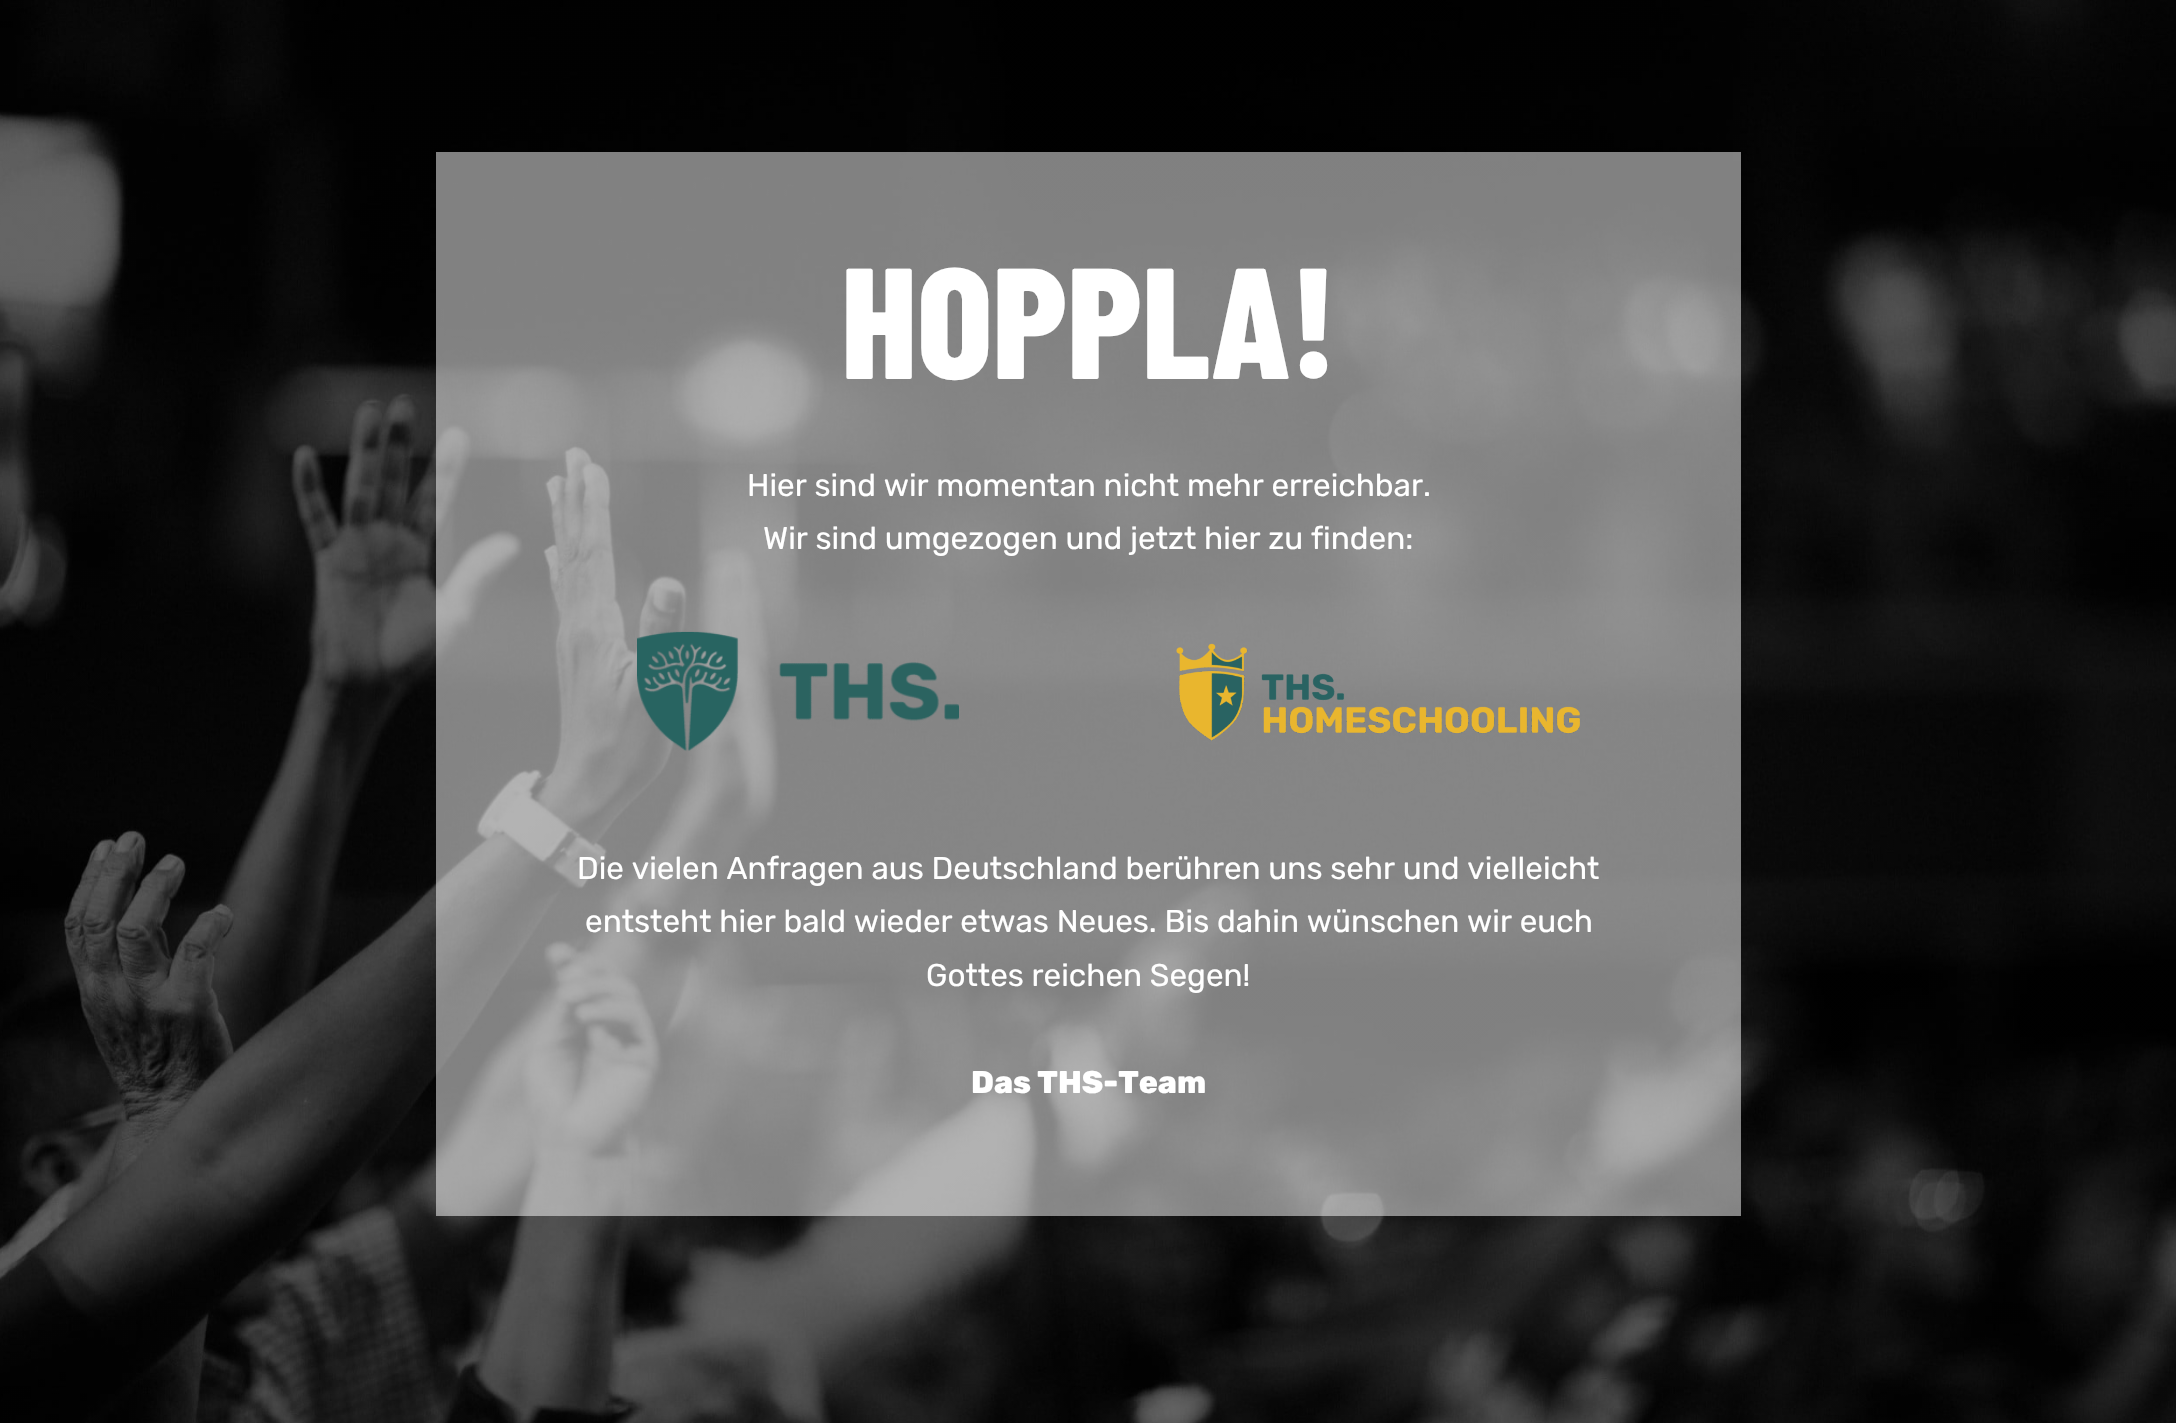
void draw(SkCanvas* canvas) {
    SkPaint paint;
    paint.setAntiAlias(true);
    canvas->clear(0xFFFFFFFF);
    canvas->drawImageRect(SkImages::DeferredFromEncodedData(SkData::MakeFromFileName("img1.png")), SkRect::MakeXYWH(0, 0, 2176, 1423), SkSamplingOptions());
    paint.setColor(0x80FFFFFF);
    canvas->drawRect(SkRect::MakeXYWH(436, 152, 1305, 1064), paint);
    SkFont font1(fontMgr->matchFamilyStyle("Barlow Condensed", SkFontStyle(800, SkFontStyle::kNormal_Width, SkFontStyle::kUpright_Slant)), 157.5f);
    font1.setSubpixel(true);
    paint.setColor(0xFFFFFFFF);
    canvas->drawString("HOPPLA!", 841, 379, font1, paint);
    SkFont font2(fontMgr->matchFamilyStyle("Rubik", SkFontStyle::Normal()), 31.5f);
    font2.setSubpixel(true);
    canvas->drawString("Hier sind wir momentan nicht mehr erreichbar.", 747, 496, font2, paint);
    canvas->drawString("Wir sind umgezogen und jetzt hier zu finden:", 763, 549, font2, paint);
    canvas->drawImageRect(SkImages::DeferredFromEncodedData(SkData::MakeFromFileName("img2.png")), SkRect::MakeXYWH(637, 631, 322, 120), SkSamplingOptions());
    canvas->drawImageRect(SkImages::DeferredFromEncodedData(SkData::MakeFromFileName("img3.png")), SkRect::MakeXYWH(1176, 643, 404, 98), SkSamplingOptions());
    canvas->drawString("Die vielen Anfragen aus Deutschland berühren uns sehr und vielleicht", 577, 879, font2, paint);
    canvas->drawString("entsteht hier bald wieder etwas Neues. Bis dahin wünschen wir euch", 585, 932, font2, paint);
    canvas->drawString("Gottes reichen Segen!", 926, 986, font2, paint);
    SkFont font3(fontMgr->matchFamilyStyle("Rubik", SkFontStyle(800, SkFontStyle::kNormal_Width, SkFontStyle::kUpright_Slant)), 31.5f);
    font3.setSubpixel(true);
    canvas->drawString("Das THS-Team", 971, 1093, font3, paint);
}
